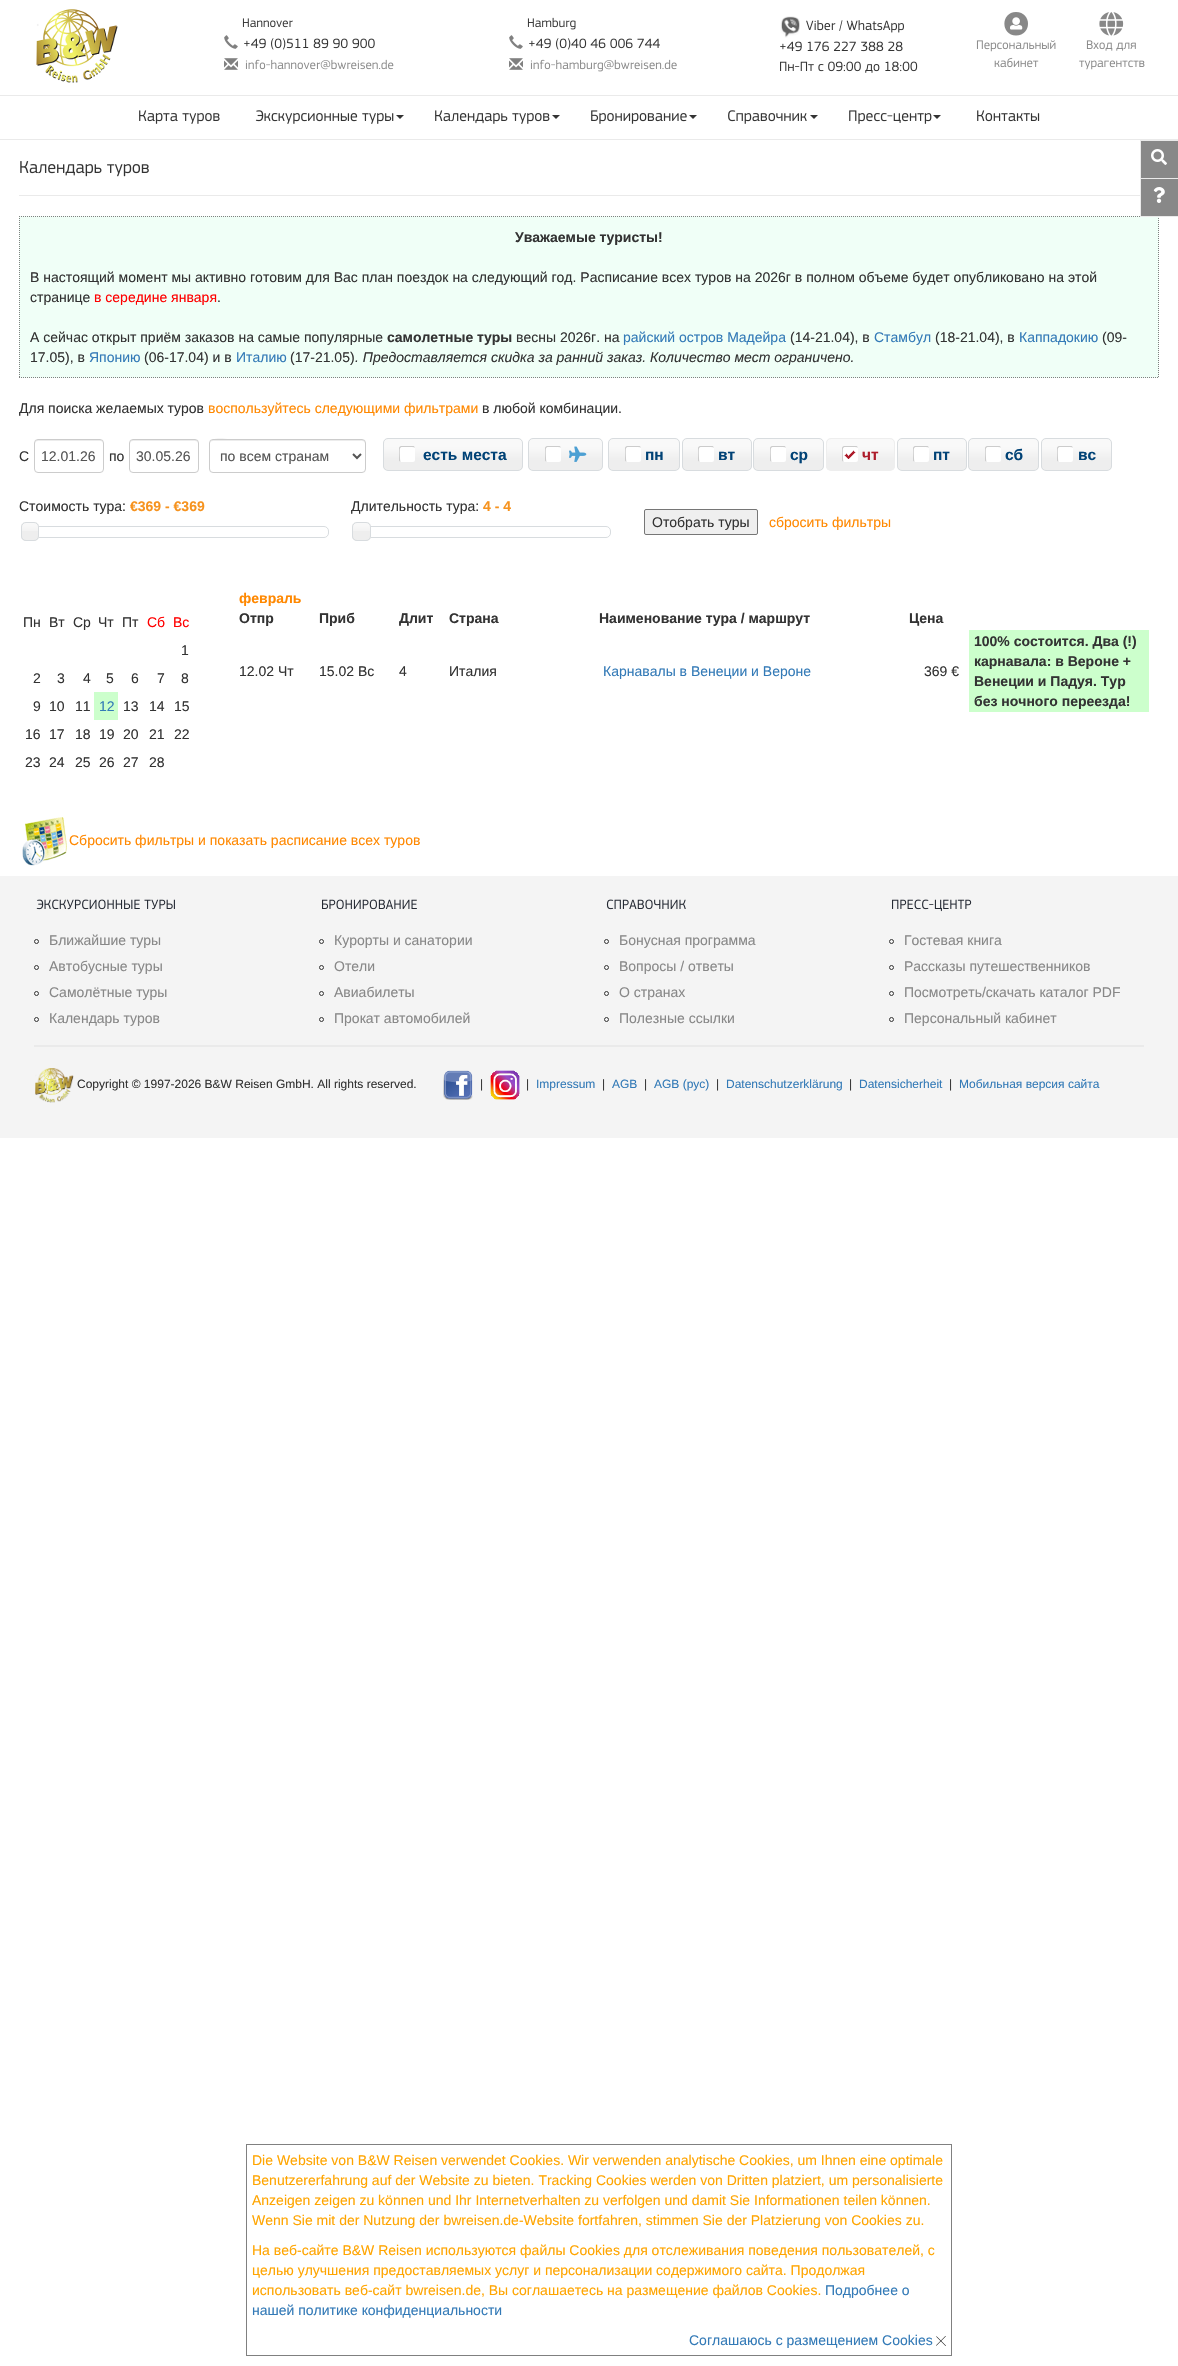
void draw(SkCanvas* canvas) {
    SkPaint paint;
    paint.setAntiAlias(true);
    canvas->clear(0xFFFFFFFF);
    canvas->drawImageRect(SkImages::DeferredFromEncodedData(SkData::MakeFromFileName("img1.png")), SkRect::MakeXYWH(36, 9, 82, 74), SkSamplingOptions());
    canvas->drawImageRect(SkImages::DeferredFromEncodedData(SkData::MakeFromFileName("img2.png")), SkRect::MakeXYWH(242, 18, 51, 10), SkSamplingOptions());
    canvas->drawImageRect(SkImages::DeferredFromEncodedData(SkData::MakeFromFileName("img3.png")), SkRect::MakeXYWH(224, 35, 14, 14), SkSamplingOptions());
    canvas->drawImageRect(SkImages::DeferredFromEncodedData(SkData::MakeFromFileName("img4.png")), SkRect::MakeXYWH(244, 38, 131, 12), SkSamplingOptions());
    canvas->drawImageRect(SkImages::DeferredFromEncodedData(SkData::MakeFromFileName("img5.png")), SkRect::MakeXYWH(224, 58, 14, 12), SkSamplingOptions());
    canvas->drawImageRect(SkImages::DeferredFromEncodedData(SkData::MakeFromFileName("img6.png")), SkRect::MakeXYWH(245, 59, 149, 11), SkSamplingOptions());
    canvas->drawImageRect(SkImages::DeferredFromEncodedData(SkData::MakeFromFileName("img7.png")), SkRect::MakeXYWH(527, 17, 49, 13), SkSamplingOptions());
    canvas->drawImageRect(SkImages::DeferredFromEncodedData(SkData::MakeFromFileName("img3.png")), SkRect::MakeXYWH(509, 35, 14, 14), SkSamplingOptions());
    canvas->drawImageRect(SkImages::DeferredFromEncodedData(SkData::MakeFromFileName("img8.png")), SkRect::MakeXYWH(529, 38, 131, 12), SkSamplingOptions());
    canvas->drawImageRect(SkImages::DeferredFromEncodedData(SkData::MakeFromFileName("img5.png")), SkRect::MakeXYWH(509, 58, 14, 12), SkSamplingOptions());
    canvas->drawImageRect(SkImages::DeferredFromEncodedData(SkData::MakeFromFileName("img9.png")), SkRect::MakeXYWH(530, 59, 147, 13), SkSamplingOptions());
    canvas->drawImageRect(SkImages::DeferredFromEncodedData(SkData::MakeFromFileName("img10.png")), SkRect::MakeXYWH(780, 16, 20, 22), SkSamplingOptions());
    canvas->drawImageRect(SkImages::DeferredFromEncodedData(SkData::MakeFromFileName("img11.png")), SkRect::MakeXYWH(806, 20, 98, 13), SkSamplingOptions());
    canvas->drawImageRect(SkImages::DeferredFromEncodedData(SkData::MakeFromFileName("img12.png")), SkRect::MakeXYWH(780, 41, 123, 11), SkSamplingOptions());
    canvas->drawImageRect(SkImages::DeferredFromEncodedData(SkData::MakeFromFileName("img13.png")), SkRect::MakeXYWH(780, 61, 138, 12), SkSamplingOptions());
    paint.setColor(0xFF888888);
    canvas->drawPath(SkPathBuilder().moveTo(1016, 12).cubicTo(1000.5f, 12, 1000.5f, 35.5f, 1016, 35.5f).cubicTo(1032, 35.5f, 1032, 12, 1016, 12).close().detach(), paint);
    canvas->drawImageRect(SkImages::DeferredFromEncodedData(SkData::MakeFromFileName("img14.png")), SkRect::MakeXYWH(1010, 17, 13, 13), SkSamplingOptions());
    canvas->drawImageRect(SkImages::DeferredFromEncodedData(SkData::MakeFromFileName("img15.png")), SkRect::MakeXYWH(976, 40, 80, 12), SkSamplingOptions());
    canvas->drawImageRect(SkImages::DeferredFromEncodedData(SkData::MakeFromFileName("img16.png")), SkRect::MakeXYWH(994, 57, 45, 11), SkSamplingOptions());
    canvas->drawImageRect(SkImages::DeferredFromEncodedData(SkData::MakeFromFileName("img17.png")), SkRect::MakeXYWH(1099, 12, 25, 24), SkSamplingOptions());
    canvas->drawImageRect(SkImages::DeferredFromEncodedData(SkData::MakeFromFileName("img18.png")), SkRect::MakeXYWH(1086, 40, 50, 11), SkSamplingOptions());
    canvas->drawImageRect(SkImages::DeferredFromEncodedData(SkData::MakeFromFileName("img19.png")), SkRect::MakeXYWH(1079, 60, 66, 10), SkSamplingOptions());
    paint.setColor(0xFFEAEAEA);
    canvas->drawRect(SkRect::MakeXYWH(0, 95, 1178, 1), paint);
    canvas->drawRect(SkRect::MakeXYWH(0, 139, 1178, 1), paint);
    canvas->drawImageRect(SkImages::DeferredFromEncodedData(SkData::MakeFromFileName("img20.png")), SkRect::MakeXYWH(139, 110, 81, 14), SkSamplingOptions());
    canvas->drawImageRect(SkImages::DeferredFromEncodedData(SkData::MakeFromFileName("img21.png")), SkRect::MakeXYWH(255, 110, 139, 14), SkSamplingOptions());
    paint.setColor(0xFF333333);
    canvas->drawPath(SkPathBuilder().moveTo(396, 115).lineTo(404, 115).lineTo(400, 119).close().detach(), paint);
    canvas->drawImageRect(SkImages::DeferredFromEncodedData(SkData::MakeFromFileName("img22.png")), SkRect::MakeXYWH(435, 110, 115, 14), SkSamplingOptions());
    canvas->drawPath(SkPathBuilder().moveTo(552, 115).lineTo(560, 115).lineTo(556, 119).close().detach(), paint);
    canvas->drawImageRect(SkImages::DeferredFromEncodedData(SkData::MakeFromFileName("img23.png")), SkRect::MakeXYWH(591, 110, 96, 14), SkSamplingOptions());
    canvas->drawPath(SkPathBuilder().moveTo(689, 115).lineTo(697, 115).lineTo(693, 119).close().detach(), paint);
    canvas->drawImageRect(SkImages::DeferredFromEncodedData(SkData::MakeFromFileName("img24.png")), SkRect::MakeXYWH(728, 110, 79, 14), SkSamplingOptions());
    canvas->drawPath(SkPathBuilder().moveTo(810, 115).lineTo(818, 115).lineTo(814, 119).close().detach(), paint);
    canvas->drawImageRect(SkImages::DeferredFromEncodedData(SkData::MakeFromFileName("img25.png")), SkRect::MakeXYWH(849, 110, 83, 14), SkSamplingOptions());
    canvas->drawPath(SkPathBuilder().moveTo(933, 115).lineTo(941, 115).lineTo(937, 119).close().detach(), paint);
    canvas->drawImageRect(SkImages::DeferredFromEncodedData(SkData::MakeFromFileName("img26.png")), SkRect::MakeXYWH(977, 110, 63, 12), SkSamplingOptions());
    paint.setColor(0xFFEAEAEA);
    canvas->drawRect(SkRect::MakeXYWH(19, 195, 1121, 1), paint);
    canvas->drawImageRect(SkImages::DeferredFromEncodedData(SkData::MakeFromFileName("img27.png")), SkRect::MakeXYWH(20, 161, 129, 16), SkSamplingOptions());
    paint.setColor(0xFFF0FFF7);
    canvas->drawRect(SkRect::MakeXYWH(19, 216, 1140, 162), paint);
    paint.setStyle(SkPaint::kStroke_Style);
    paint.setStrokeWidth(1);
    paint.setColor(0xFF808080);
    paint.setPathEffect(SkDashPathEffect::Make({{1, 1}}, 0));
    canvas->drawPath(SkPathBuilder().moveTo(19, 216.5f).lineTo(1159, 216.5f).detach(), paint);
    paint.setPathEffect(nullptr);
    paint.setPathEffect(SkDashPathEffect::Make({{1, 1}}, 0));
    canvas->drawPath(SkPathBuilder().moveTo(1158.5f, 216).lineTo(1158.5f, 378).detach(), paint);
    paint.setPathEffect(nullptr);
    paint.setPathEffect(SkDashPathEffect::Make({{1, 1}}, 0));
    canvas->drawPath(SkPathBuilder().moveTo(19, 377.5f).lineTo(1159, 377.5f).detach(), paint);
    paint.setPathEffect(nullptr);
    paint.setPathEffect(SkDashPathEffect::Make({{1, 1}}, 0));
    canvas->drawPath(SkPathBuilder().moveTo(19.5f, 216).lineTo(19.5f, 378).detach(), paint);
    paint.setPathEffect(nullptr);
    SkFont font1(fontMgr->matchFamilyStyle("Liberation Sans", SkFontStyle::Bold()), 14);
    font1.setSubpixel(true);
    paint.setStyle(SkPaint::kFill_Style);
    paint.setColor(0xFF333333);
    canvas->drawString("Уважаемые туристы!", 515, 242, font1, paint);
    SkFont font2(fontMgr->matchFamilyStyle("Liberation Sans", SkFontStyle::Normal()), 14);
    font2.setSubpixel(true);
    canvas->drawString("В настоящий момент мы активно готовим для Вас план поездок на следующий год. Расписание всех туров на 2026г в полном объеме будет опубликовано на этой", 30, 282, font2, paint);
    canvas->drawString("странице", 30, 302, font2, paint);
    paint.setColor(0xFFFF0000);
    canvas->drawString("в середине января", 94, 302, font2, paint);
    paint.setColor(0xFF333333);
    canvas->drawString(".", 217, 302, font2, paint);
    canvas->drawString("А сейчас открыт приём заказов на самые популярные", 30, 342, font2, paint);
    canvas->drawString("самолетные туры", 387, 342, font1, paint);
    canvas->drawString("весны 2026г. на", 516, 342, font2, paint);
    paint.setColor(0xFF337AB7);
    canvas->drawString("райский остров Мадейра", 623, 342, font2, paint);
    paint.setColor(0xFF333333);
    canvas->drawString("(14-21.04), в", 790, 342, font2, paint);
    paint.setColor(0xFF337AB7);
    canvas->drawString("Стамбул", 874, 342, font2, paint);
    paint.setColor(0xFF333333);
    canvas->drawString("(18-21.04), в", 935, 342, font2, paint);
    paint.setColor(0xFF337AB7);
    canvas->drawString("Каппадокию", 1019, 342, font2, paint);
    paint.setColor(0xFF333333);
    canvas->drawString("(09-", 1102, 342, font2, paint);
    canvas->drawString("17.05), в", 30, 362, font2, paint);
    paint.setColor(0xFF337AB7);
    canvas->drawString("Японию", 89, 362, font2, paint);
    paint.setColor(0xFF333333);
    canvas->drawString("(06-17.04) и в", 144, 362, font2, paint);
    paint.setColor(0xFF337AB7);
    canvas->drawString("Италию", 236, 362, font2, paint);
    paint.setColor(0xFF333333);
    canvas->drawString("(17-21.05)", 290, 362, font2, paint);
    SkFont font3(fontMgr->matchFamilyStyle("Liberation Sans", SkFontStyle::Italic()), 14);
    font3.setSubpixel(true);
    canvas->drawString(". Предоставляется скидка за ранний заказ. Количество мест ограничено.", 355, 362, font3, paint);
    canvas->drawString("Для поиска желаемых туров", 19, 413, font2, paint);
    paint.setColor(0xFFFF8800);
    canvas->drawString("воспользуйтесь следующими фильтрами", 208, 413, font2, paint);
    paint.setColor(0xFF333333);
    canvas->drawString("в любой комбинации.", 482, 413, font2, paint);
    canvas->drawString("С", 19, 461, font2, paint);
    paint.setColor(0xFFECECEC);
    canvas->drawPath(SkPathBuilder().moveTo(38, 441).lineTo(100, 441).cubicTo(102, 441, 103, 442, 103, 444).cubicTo(103, 437, 94, 440, 90, 440).lineTo(48, 440).cubicTo(44, 440, 35, 437, 35, 444).cubicTo(35, 442, 36, 441, 38, 441).close().detach(), paint);
    paint.setStyle(SkPaint::kStroke_Style);
    paint.setColor(0xFFCCCCCC);
    canvas->drawRoundRect(SkRect::MakeXYWH(34.5f, 439.5f, 69, 33), 3.5f, 3.5f, paint);
    paint.setStyle(SkPaint::kFill_Style);
    paint.setColor(0xFF555555);
    canvas->drawString("12.01.26", 41, 461, font2, paint);
    paint.setColor(0xFF333333);
    canvas->drawString("по", 109, 461, font2, paint);
    paint.setColor(0xFFECECEC);
    canvas->drawPath(SkPathBuilder().moveTo(133, 441).lineTo(195, 441).cubicTo(197, 441, 198, 442, 198, 444).cubicTo(198, 437, 189, 440, 185, 440).lineTo(143, 440).cubicTo(139, 440, 130, 437, 130, 444).cubicTo(130, 442, 131, 441, 133, 441).close().detach(), paint);
    paint.setStyle(SkPaint::kStroke_Style);
    paint.setColor(0xFFCCCCCC);
    canvas->drawRoundRect(SkRect::MakeXYWH(129.5f, 439.5f, 69, 33), 3.5f, 3.5f, paint);
    paint.setStyle(SkPaint::kFill_Style);
    paint.setColor(0xFF555555);
    canvas->drawString("30.05.26", 136, 461, font2, paint);
    paint.setColor(0xFFECECEC);
    canvas->drawPath(SkPathBuilder().moveTo(213, 441).lineTo(362, 441).cubicTo(364, 441, 365, 442, 365, 444).cubicTo(365, 442, 365, 441, 363, 440).lineTo(238, 440).cubicTo(230, 440, 210, 435, 210, 444).cubicTo(210, 442, 211, 441, 213, 441).close().detach(), paint);
    paint.setStyle(SkPaint::kStroke_Style);
    paint.setColor(0xFFCCCCCC);
    canvas->drawRoundRect(SkRect::MakeXYWH(209.5f, 439.5f, 156, 33), 3.5f, 3.5f, paint);
    paint.setStrokeWidth(2);
    paint.setColor(0xFF555555);
    canvas->drawPath(SkPathBuilder().moveTo(353, 454).lineTo(357, 458).lineTo(361, 454).detach(), paint);
    paint.setStyle(SkPaint::kFill_Style);
    canvas->drawString("по всем странам", 220, 461, font2, paint);
    canvas->drawImageRect(SkImages::DeferredFromEncodedData(SkData::MakeFromFileName("img28.png")), SkRect::MakeXYWH(383, 438, 140, 32), SkSamplingOptions());
    paint.setStyle(SkPaint::kStroke_Style);
    paint.setStrokeWidth(1);
    paint.setColor(0xFFD8DCDF);
    canvas->drawRoundRect(SkRect::MakeXYWH(383.5f, 438.5f, 139, 32), 4.5f, 4.5f, paint);
    paint.setStyle(SkPaint::kFill_Style);
    paint.setColor(0xFFFFFFFF);
    canvas->drawRoundRect(SkRect::MakeXYWH(399, 446, 16, 16), 2, 2, paint);
    paint.setColor(0xFFCCCCCC);
    canvas->drawPath(SkPathBuilder().moveTo(402, 447).cubicTo(405, 447, 412.5f, 446.5f, 415, 447.5f).cubicTo(414.5f, 446.5f, 414, 446, 413, 446).lineTo(401, 446).cubicTo(400, 446, 399, 447, 399, 448).lineTo(399, 460).cubicTo(399, 461, 399.5f, 461.5f, 400.5f, 462).cubicTo(400, 460.5f, 399.5f, 449.5f, 400, 448.5f).cubicTo(400.5f, 447.5f, 401, 447, 402, 447).close().detach(), paint);
    SkFont font4(fontMgr->matchFamilyStyle("Liberation Sans", SkFontStyle::Bold()), 15.5f);
    font4.setSubpixel(true);
    paint.setColor(0xFF004276);
    canvas->drawString("есть места", 423, 460, font4, paint);
    canvas->drawImageRect(SkImages::DeferredFromEncodedData(SkData::MakeFromFileName("img29.png")), SkRect::MakeXYWH(528, 438, 75, 32), SkSamplingOptions());
    paint.setStyle(SkPaint::kStroke_Style);
    paint.setColor(0xFFD8DCDF);
    canvas->drawRoundRect(SkRect::MakeXYWH(528.5f, 438.5f, 74, 32), 4.5f, 4.5f, paint);
    paint.setStyle(SkPaint::kFill_Style);
    paint.setColor(0xFFFFFFFF);
    canvas->drawRoundRect(SkRect::MakeXYWH(545, 446, 16, 16), 2, 2, paint);
    paint.setColor(0xFFCCCCCC);
    canvas->drawPath(SkPathBuilder().moveTo(548, 447).cubicTo(551, 447, 558.5f, 446.5f, 561, 447.5f).cubicTo(560.5f, 446.5f, 560, 446, 559, 446).lineTo(547, 446).cubicTo(546, 446, 545, 447, 545, 448).lineTo(545, 460).cubicTo(545, 461, 545.5f, 461.5f, 546.5f, 462).cubicTo(546, 460.5f, 545.5f, 449.5f, 546, 448.5f).cubicTo(546.5f, 447.5f, 547, 447, 548, 447).close().detach(), paint);
    canvas->drawImageRect(SkImages::DeferredFromEncodedData(SkData::MakeFromFileName("img30.png")), SkRect::MakeXYWH(569, 446, 18, 16), SkSamplingOptions());
    canvas->drawImageRect(SkImages::DeferredFromEncodedData(SkData::MakeFromFileName("img31.png")), SkRect::MakeXYWH(608, 438, 72, 32), SkSamplingOptions());
    paint.setStyle(SkPaint::kStroke_Style);
    paint.setColor(0xFFD8DCDF);
    canvas->drawRoundRect(SkRect::MakeXYWH(608.5f, 438.5f, 71, 32), 4.5f, 4.5f, paint);
    paint.setStyle(SkPaint::kFill_Style);
    paint.setColor(0xFFFFFFFF);
    canvas->drawRoundRect(SkRect::MakeXYWH(625, 446, 16, 16), 2, 2, paint);
    paint.setColor(0xFFCCCCCC);
    canvas->drawPath(SkPathBuilder().moveTo(628, 447).cubicTo(631, 447, 638.5f, 446.5f, 641, 447.5f).cubicTo(640.5f, 446.5f, 640, 446, 639, 446).lineTo(627, 446).cubicTo(626, 446, 625, 447, 625, 448).lineTo(625, 460).cubicTo(625, 461, 625.5f, 461.5f, 626.5f, 462).cubicTo(626, 460.5f, 625.5f, 449.5f, 626, 448.5f).cubicTo(626.5f, 447.5f, 627, 447, 628, 447).close().detach(), paint);
    paint.setColor(0xFF004276);
    canvas->drawString("пн", 645, 460, font4, paint);
    canvas->drawImageRect(SkImages::DeferredFromEncodedData(SkData::MakeFromFileName("img32.png")), SkRect::MakeXYWH(682, 438, 70, 32), SkSamplingOptions());
    paint.setStyle(SkPaint::kStroke_Style);
    paint.setColor(0xFFD8DCDF);
    canvas->drawRoundRect(SkRect::MakeXYWH(682.5f, 438.5f, 69, 32), 4.5f, 4.5f, paint);
    paint.setStyle(SkPaint::kFill_Style);
    paint.setColor(0xFFFFFFFF);
    canvas->drawRoundRect(SkRect::MakeXYWH(698, 446, 16, 16), 2, 2, paint);
    paint.setColor(0xFFCCCCCC);
    canvas->drawPath(SkPathBuilder().moveTo(701, 447).cubicTo(704, 447, 711.5f, 446.5f, 714, 447.5f).cubicTo(713.5f, 446.5f, 713, 446, 712, 446).lineTo(700, 446).cubicTo(699, 446, 698, 447, 698, 448).lineTo(698, 460).cubicTo(698, 461, 698.5f, 461.5f, 699.5f, 462).cubicTo(699, 460.5f, 698.5f, 449.5f, 699, 448.5f).cubicTo(699.5f, 447.5f, 700, 447, 701, 447).close().detach(), paint);
    paint.setColor(0xFF004276);
    canvas->drawString("вт", 718, 460, font4, paint);
    canvas->drawImageRect(SkImages::DeferredFromEncodedData(SkData::MakeFromFileName("img33.png")), SkRect::MakeXYWH(753, 438, 71, 32), SkSamplingOptions());
    paint.setStyle(SkPaint::kStroke_Style);
    paint.setColor(0xFFD8DCDF);
    canvas->drawRoundRect(SkRect::MakeXYWH(753.5f, 438.5f, 70, 32), 4.5f, 4.5f, paint);
    paint.setStyle(SkPaint::kFill_Style);
    paint.setColor(0xFFFFFFFF);
    canvas->drawRoundRect(SkRect::MakeXYWH(770, 446, 16, 16), 2, 2, paint);
    paint.setColor(0xFFCCCCCC);
    canvas->drawPath(SkPathBuilder().moveTo(773, 447).cubicTo(776, 447, 783.5f, 446.5f, 786, 447.5f).cubicTo(785.5f, 446.5f, 785, 446, 784, 446).lineTo(772, 446).cubicTo(771, 446, 770, 447, 770, 448).lineTo(770, 460).cubicTo(770, 461, 770.5f, 461.5f, 771.5f, 462).cubicTo(771, 460.5f, 770.5f, 449.5f, 771, 448.5f).cubicTo(771.5f, 447.5f, 772, 447, 773, 447).close().detach(), paint);
    paint.setColor(0xFF004276);
    canvas->drawString("ср", 790, 460, font4, paint);
    canvas->drawImageRect(SkImages::DeferredFromEncodedData(SkData::MakeFromFileName("img34.png")), SkRect::MakeXYWH(826, 438, 69, 32), SkSamplingOptions());
    paint.setStyle(SkPaint::kStroke_Style);
    paint.setColor(0xFFEEEEEE);
    canvas->drawRoundRect(SkRect::MakeXYWH(826.5f, 438.5f, 68, 32), 4.5f, 4.5f, paint);
    paint.setStyle(SkPaint::kFill_Style);
    paint.setColor(0xFFFFFFFF);
    canvas->drawRoundRect(SkRect::MakeXYWH(842, 446, 16, 16), 2, 2, paint);
    canvas->drawImageRect(SkImages::DeferredFromEncodedData(SkData::MakeFromFileName("img35.png")), SkRect::MakeXYWH(844, 450, 12, 9), SkSamplingOptions());
    paint.setColor(0xFFCCCCCC);
    canvas->drawPath(SkPathBuilder().moveTo(845, 447).cubicTo(848, 447, 855.5f, 446.5f, 858, 447.5f).cubicTo(857.5f, 446.5f, 857, 446, 856, 446).lineTo(844, 446).cubicTo(843, 446, 842, 447, 842, 448).lineTo(842, 460).cubicTo(842, 461, 842.5f, 461.5f, 843.5f, 462).cubicTo(843, 460.5f, 842.5f, 449.5f, 843, 448.5f).cubicTo(843.5f, 447.5f, 844, 447, 845, 447).close().detach(), paint);
    paint.setColor(0xFFAD1B2A);
    canvas->drawString("чт", 862, 460, font4, paint);
    canvas->drawImageRect(SkImages::DeferredFromEncodedData(SkData::MakeFromFileName("img32.png")), SkRect::MakeXYWH(897, 438, 70, 32), SkSamplingOptions());
    paint.setStyle(SkPaint::kStroke_Style);
    paint.setColor(0xFFD8DCDF);
    canvas->drawRoundRect(SkRect::MakeXYWH(897.5f, 438.5f, 69, 32), 4.5f, 4.5f, paint);
    paint.setStyle(SkPaint::kFill_Style);
    paint.setColor(0xFFFFFFFF);
    canvas->drawRoundRect(SkRect::MakeXYWH(913, 446, 16, 16), 2, 2, paint);
    paint.setColor(0xFFCCCCCC);
    canvas->drawPath(SkPathBuilder().moveTo(916, 447).cubicTo(919, 447, 926.5f, 446.5f, 929, 447.5f).cubicTo(928.5f, 446.5f, 928, 446, 927, 446).lineTo(915, 446).cubicTo(914, 446, 913, 447, 913, 448).lineTo(913, 460).cubicTo(913, 461, 913.5f, 461.5f, 914.5f, 462).cubicTo(914, 460.5f, 913.5f, 449.5f, 914, 448.5f).cubicTo(914.5f, 447.5f, 915, 447, 916, 447).close().detach(), paint);
    paint.setColor(0xFF004276);
    canvas->drawString("пт", 933, 460, font4, paint);
    canvas->drawImageRect(SkImages::DeferredFromEncodedData(SkData::MakeFromFileName("img33.png")), SkRect::MakeXYWH(968, 438, 71, 32), SkSamplingOptions());
    paint.setStyle(SkPaint::kStroke_Style);
    paint.setColor(0xFFD8DCDF);
    canvas->drawRoundRect(SkRect::MakeXYWH(968.5f, 438.5f, 70, 32), 4.5f, 4.5f, paint);
    paint.setStyle(SkPaint::kFill_Style);
    paint.setColor(0xFFFFFFFF);
    canvas->drawRoundRect(SkRect::MakeXYWH(985, 446, 16, 16), 2, 2, paint);
    paint.setColor(0xFFCCCCCC);
    canvas->drawPath(SkPathBuilder().moveTo(988, 447).cubicTo(991, 447, 998.5f, 446.5f, 1001, 447.5f).cubicTo(1000.5f, 446.5f, 1000, 446, 999, 446).lineTo(987, 446).cubicTo(986, 446, 985, 447, 985, 448).lineTo(985, 460).cubicTo(985, 461, 985.5f, 461.5f, 986.5f, 462).cubicTo(986, 460.5f, 985.5f, 449.5f, 986, 448.5f).cubicTo(986.5f, 447.5f, 987, 447, 988, 447).close().detach(), paint);
    paint.setColor(0xFF004276);
    canvas->drawString("сб", 1005, 460, font4, paint);
    canvas->drawImageRect(SkImages::DeferredFromEncodedData(SkData::MakeFromFileName("img36.png")), SkRect::MakeXYWH(1041, 438, 71, 32), SkSamplingOptions());
    paint.setStyle(SkPaint::kStroke_Style);
    paint.setColor(0xFFD8DCDF);
    canvas->drawRoundRect(SkRect::MakeXYWH(1041.5f, 438.5f, 70, 32), 4.5f, 4.5f, paint);
    paint.setStyle(SkPaint::kFill_Style);
    paint.setColor(0xFFFFFFFF);
    canvas->drawRoundRect(SkRect::MakeXYWH(1057, 446, 16, 16), 2, 2, paint);
    paint.setColor(0xFFCCCCCC);
    canvas->drawPath(SkPathBuilder().moveTo(1060, 447).cubicTo(1063, 447, 1070.5f, 446.5f, 1073, 447.5f).cubicTo(1072.5f, 446.5f, 1072, 446, 1071, 446).lineTo(1059, 446).cubicTo(1058, 446, 1057, 447, 1057, 448).lineTo(1057, 460).cubicTo(1057, 461, 1057.5f, 461.5f, 1058.5f, 462).cubicTo(1058, 460.5f, 1057.5f, 449.5f, 1058, 448.5f).cubicTo(1058.5f, 447.5f, 1059, 447, 1060, 447).close().detach(), paint);
    paint.setColor(0xFF004276);
    canvas->drawString("вс", 1078, 460, font4, paint);
    paint.setColor(0xFF333333);
    canvas->drawString("Стоимость тура:", 19, 511, font2, paint);
    paint.setColor(0xFFF6931F);
    canvas->drawString("€369 - €369", 130, 511, font1, paint);
    paint.setColor(0xFF333333);
    canvas->drawString("Длительность тура:", 351, 511, font2, paint);
    paint.setColor(0xFFF6931F);
    canvas->drawString("4 - 4", 483, 511, font1, paint);
    paint.setColor(0xFFEFEFEF);
    canvas->drawRoundRect(SkRect::MakeXYWH(644.5f, 509.5f, 113, 25), 1.5f, 1.5f, paint);
    paint.setStyle(SkPaint::kStroke_Style);
    paint.setColor(0xFF767676);
    canvas->drawRoundRect(SkRect::MakeXYWH(644.5f, 509.5f, 113, 25), 1.5f, 1.5f, paint);
    paint.setStyle(SkPaint::kFill_Style);
    paint.setColor(0xFF333333);
    canvas->drawString("Отобрать туры", 652, 527, font2, paint);
    paint.setColor(0xFFFF8800);
    canvas->drawString("cбросить фильтры", 769, 527, font2, paint);
    paint.setStyle(SkPaint::kStroke_Style);
    paint.setColor(0xFFD8DCDF);
    canvas->drawRoundRect(SkRect::MakeXYWH(29.5f, 526.5f, 299, 11), 4.5f, 4.5f, paint);
    canvas->drawImageRect(SkImages::DeferredFromEncodedData(SkData::MakeFromFileName("img37.png")), SkRect::MakeXYWH(21, 522, 18, 18), SkSamplingOptions());
    canvas->drawRoundRect(SkRect::MakeXYWH(21.5f, 522.5f, 17, 18), 4.5f, 4.5f, paint);
    paint.setStyle(SkPaint::kFill_Style);
    paint.setColor(0xFFEEEEEE);
    canvas->drawRoundRect(SkRect::MakeXYWH(21, 522, 18, 19), 5, 5, paint);
    canvas->drawImageRect(SkImages::DeferredFromEncodedData(SkData::MakeFromFileName("img38.png")), SkRect::MakeXYWH(21, 522, 18, 9), SkSamplingOptions());
    paint.setStyle(SkPaint::kStroke_Style);
    paint.setColor(0xFFD8DCDF);
    canvas->drawRoundRect(SkRect::MakeXYWH(21.5f, 522.5f, 17, 18), 4.5f, 4.5f, paint);
    canvas->drawRoundRect(SkRect::MakeXYWH(361.5f, 526.5f, 249, 11), 4.5f, 4.5f, paint);
    canvas->drawImageRect(SkImages::DeferredFromEncodedData(SkData::MakeFromFileName("img39.png")), SkRect::MakeXYWH(352, 522, 19, 18), SkSamplingOptions());
    canvas->drawRoundRect(SkRect::MakeXYWH(352.5f, 522.5f, 18, 18), 4.5f, 4.5f, paint);
    paint.setStyle(SkPaint::kFill_Style);
    paint.setColor(0xFFEEEEEE);
    canvas->drawRoundRect(SkRect::MakeXYWH(352, 522, 19, 19), 5, 5, paint);
    canvas->drawImageRect(SkImages::DeferredFromEncodedData(SkData::MakeFromFileName("img40.png")), SkRect::MakeXYWH(352, 522, 19, 9), SkSamplingOptions());
    paint.setStyle(SkPaint::kStroke_Style);
    paint.setColor(0xFFD8DCDF);
    canvas->drawRoundRect(SkRect::MakeXYWH(352.5f, 522.5f, 18, 18), 4.5f, 4.5f, paint);
    paint.setStyle(SkPaint::kFill_Style);
    paint.setColor(0xFFFF8800);
    canvas->drawString("февраль", 239, 603, font1, paint);
    paint.setColor(0xFF333333);
    canvas->drawString("Пн", 23, 627, font2, paint);
    canvas->drawString("Вт", 49, 627, font2, paint);
    canvas->drawString("Ср", 73, 627, font2, paint);
    canvas->drawString("Чт", 98, 627, font2, paint);
    canvas->drawString("Пт", 122, 627, font2, paint);
    paint.setColor(0xFFFF0000);
    canvas->drawString("Сб", 147, 627, font2, paint);
    canvas->drawString("Вс", 173, 627, font2, paint);
    paint.setColor(0xFF333333);
    canvas->drawString("1", 181, 655, font2, paint);
    canvas->drawString("2", 33, 683, font2, paint);
    canvas->drawString("3", 57, 683, font2, paint);
    canvas->drawString("4", 83, 683, font2, paint);
    canvas->drawString("5", 106, 683, font2, paint);
    canvas->drawString("6", 131, 683, font2, paint);
    canvas->drawString("7", 157, 683, font2, paint);
    canvas->drawString("8", 181, 683, font2, paint);
    canvas->drawString("9", 33, 711, font2, paint);
    canvas->drawString("10", 49, 711, font2, paint);
    canvas->drawString("11", 75, 711, font2, paint);
    paint.setColor(0xFFCCFFCC);
    canvas->drawRect(SkRect::MakeXYWH(94, 692, 24, 28), paint);
    paint.setColor(0xFF337AB7);
    canvas->drawString("12", 99, 711, font2, paint);
    paint.setColor(0xFF333333);
    canvas->drawString("13", 123, 711, font2, paint);
    canvas->drawString("14", 149, 711, font2, paint);
    canvas->drawString("15", 174, 711, font2, paint);
    canvas->drawString("16", 25, 739, font2, paint);
    canvas->drawString("17", 49, 739, font2, paint);
    canvas->drawString("18", 75, 739, font2, paint);
    canvas->drawString("19", 99, 739, font2, paint);
    canvas->drawString("20", 123, 739, font2, paint);
    canvas->drawString("21", 149, 739, font2, paint);
    canvas->drawString("22", 174, 739, font2, paint);
    canvas->drawString("23", 25, 767, font2, paint);
    canvas->drawString("24", 49, 767, font2, paint);
    canvas->drawString("25", 75, 767, font2, paint);
    canvas->drawString("26", 99, 767, font2, paint);
    canvas->drawString("27", 123, 767, font2, paint);
    canvas->drawString("28", 149, 767, font2, paint);
    canvas->drawString("Отпр", 239, 623, font1, paint);
    canvas->drawString("Приб", 319, 623, font1, paint);
    canvas->drawString("Длит", 399, 623, font1, paint);
    canvas->drawString("Страна", 449, 623, font1, paint);
    canvas->drawString("Наименование тура / маршрут", 599, 623, font1, paint);
    canvas->drawString("Цена", 909, 623, font1, paint);
    canvas->drawString("12.02 Чт", 239, 676, font2, paint);
    canvas->drawString("15.02 Вс", 319, 676, font2, paint);
    canvas->drawString("4", 399, 676, font2, paint);
    canvas->drawString("Италия", 449, 676, font2, paint);
    paint.setColor(0xFF337AB7);
    canvas->drawString("Карнавалы в Венеции и Вероне", 603, 676, font2, paint);
    paint.setColor(0xFF333333);
    canvas->drawString("369 €", 924, 676, font2, paint);
    paint.setColor(0xFFCCFFCC);
    canvas->drawRect(SkRect::MakeXYWH(969, 630, 180, 82), paint);
    paint.setColor(0xFF333333);
    canvas->drawString("100% состоится. Два (!)", 974, 646, font1, paint);
    canvas->drawString("карнавала: в Вероне +", 974, 666, font1, paint);
    canvas->drawString("Венеции и Падуя. Тур", 974, 686, font1, paint);
    canvas->drawString("без ночного переезда!", 974, 706, font1, paint);
    canvas->drawImageRect(SkImages::DeferredFromEncodedData(SkData::MakeFromFileName("img41.png")), SkRect::MakeXYWH(22, 817, 45, 49), SkSamplingOptions());
    paint.setColor(0xFFFF8800);
    canvas->drawString("Сбросить фильтры и показать расписание всех туров", 69, 845, font2, paint);
    paint.setColor(0xFFF4F4F4);
    canvas->drawRect(SkRect::MakeXYWH(0, 876, 1178, 262), paint);
    paint.setColor(0xFF888888);
    canvas->drawRect(SkRect::MakeXYWH(1140.5f, 140.5f, 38, 38), paint);
    paint.setStyle(SkPaint::kStroke_Style);
    paint.setColor(0xFFEAEAEA);
    canvas->drawRect(SkRect::MakeXYWH(1140.5f, 140.5f, 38, 38), paint);
    canvas->drawImageRect(SkImages::DeferredFromEncodedData(SkData::MakeFromFileName("img42.png")), SkRect::MakeXYWH(1151, 149, 16, 16), SkSamplingOptions());
    paint.setStyle(SkPaint::kFill_Style);
    paint.setColor(0xFF888888);
    canvas->drawRect(SkRect::MakeXYWH(1140.5f, 178.5f, 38, 38), paint);
    paint.setStyle(SkPaint::kStroke_Style);
    paint.setColor(0xFFEAEAEA);
    canvas->drawRect(SkRect::MakeXYWH(1140.5f, 178.5f, 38, 38), paint);
    canvas->drawImageRect(SkImages::DeferredFromEncodedData(SkData::MakeFromFileName("img43.png")), SkRect::MakeXYWH(1153, 187, 12, 16), SkSamplingOptions());
    canvas->drawImageRect(SkImages::DeferredFromEncodedData(SkData::MakeFromFileName("img44.png")), SkRect::MakeXYWH(36, 899, 139, 11), SkSamplingOptions());
    paint.setColor(0xFF333333);
    canvas->drawCircle(36.5f, 941.5f, 2, paint);
    paint.setStyle(SkPaint::kFill_Style);
    paint.setColor(0xFF888888);
    canvas->drawString("Ближайшие туры", 49, 945, font2, paint);
    paint.setStyle(SkPaint::kStroke_Style);
    paint.setColor(0xFF333333);
    canvas->drawCircle(36.5f, 967.5f, 2, paint);
    paint.setStyle(SkPaint::kFill_Style);
    paint.setColor(0xFF888888);
    canvas->drawString("Автобусные туры", 49, 971, font2, paint);
    paint.setStyle(SkPaint::kStroke_Style);
    paint.setColor(0xFF333333);
    canvas->drawCircle(36.5f, 993.5f, 2, paint);
    paint.setStyle(SkPaint::kFill_Style);
    paint.setColor(0xFF888888);
    canvas->drawString("Самолётные туры", 49, 997, font2, paint);
    paint.setStyle(SkPaint::kStroke_Style);
    paint.setColor(0xFF333333);
    canvas->drawCircle(36.5f, 1019.5f, 2, paint);
    paint.setStyle(SkPaint::kFill_Style);
    paint.setColor(0xFF888888);
    canvas->drawString("Календарь туров", 49, 1023, font2, paint);
    canvas->drawImageRect(SkImages::DeferredFromEncodedData(SkData::MakeFromFileName("img45.png")), SkRect::MakeXYWH(322, 899, 95, 11), SkSamplingOptions());
    paint.setStyle(SkPaint::kStroke_Style);
    paint.setColor(0xFF333333);
    canvas->drawCircle(321.5f, 941.5f, 2, paint);
    paint.setStyle(SkPaint::kFill_Style);
    paint.setColor(0xFF888888);
    canvas->drawString("Курорты и санатории", 334, 945, font2, paint);
    paint.setStyle(SkPaint::kStroke_Style);
    paint.setColor(0xFF333333);
    canvas->drawCircle(321.5f, 967.5f, 2, paint);
    paint.setStyle(SkPaint::kFill_Style);
    paint.setColor(0xFF888888);
    canvas->drawString("Отели", 334, 971, font2, paint);
    paint.setStyle(SkPaint::kStroke_Style);
    paint.setColor(0xFF333333);
    canvas->drawCircle(321.5f, 993.5f, 2, paint);
    paint.setStyle(SkPaint::kFill_Style);
    paint.setColor(0xFF888888);
    canvas->drawString("Авиабилеты", 334, 997, font2, paint);
    paint.setStyle(SkPaint::kStroke_Style);
    paint.setColor(0xFF333333);
    canvas->drawCircle(321.5f, 1019.5f, 2, paint);
    paint.setStyle(SkPaint::kFill_Style);
    paint.setColor(0xFF888888);
    canvas->drawString("Прокат автомобилей", 334, 1023, font2, paint);
    canvas->drawImageRect(SkImages::DeferredFromEncodedData(SkData::MakeFromFileName("img46.png")), SkRect::MakeXYWH(606, 899, 80, 11), SkSamplingOptions());
    paint.setStyle(SkPaint::kStroke_Style);
    paint.setColor(0xFF333333);
    canvas->drawCircle(606.5f, 941.5f, 2, paint);
    paint.setStyle(SkPaint::kFill_Style);
    paint.setColor(0xFF888888);
    canvas->drawString("Бонусная программа", 619, 945, font2, paint);
    paint.setStyle(SkPaint::kStroke_Style);
    paint.setColor(0xFF333333);
    canvas->drawCircle(606.5f, 967.5f, 2, paint);
    paint.setStyle(SkPaint::kFill_Style);
    paint.setColor(0xFF888888);
    canvas->drawString("Вопросы / ответы", 619, 971, font2, paint);
    paint.setStyle(SkPaint::kStroke_Style);
    paint.setColor(0xFF333333);
    canvas->drawCircle(606.5f, 993.5f, 2, paint);
    paint.setStyle(SkPaint::kFill_Style);
    paint.setColor(0xFF888888);
    canvas->drawString("О странах", 619, 997, font2, paint);
    paint.setStyle(SkPaint::kStroke_Style);
    paint.setColor(0xFF333333);
    canvas->drawCircle(606.5f, 1019.5f, 2, paint);
    paint.setStyle(SkPaint::kFill_Style);
    paint.setColor(0xFF888888);
    canvas->drawString("Полезные ссылки", 619, 1023, font2, paint);
    canvas->drawImageRect(SkImages::DeferredFromEncodedData(SkData::MakeFromFileName("img47.png")), SkRect::MakeXYWH(892, 899, 80, 13), SkSamplingOptions());
    paint.setStyle(SkPaint::kStroke_Style);
    paint.setColor(0xFF333333);
    canvas->drawCircle(891.5f, 941.5f, 2, paint);
    paint.setStyle(SkPaint::kFill_Style);
    paint.setColor(0xFF888888);
    canvas->drawString("Гостевая книга", 904, 945, font2, paint);
    paint.setStyle(SkPaint::kStroke_Style);
    paint.setColor(0xFF333333);
    canvas->drawCircle(891.5f, 967.5f, 2, paint);
    paint.setStyle(SkPaint::kFill_Style);
    paint.setColor(0xFF888888);
    canvas->drawString("Рассказы путешественников", 904, 971, font2, paint);
    paint.setStyle(SkPaint::kStroke_Style);
    paint.setColor(0xFF333333);
    canvas->drawCircle(891.5f, 993.5f, 2, paint);
    paint.setStyle(SkPaint::kFill_Style);
    paint.setColor(0xFF888888);
    canvas->drawString("Посмотреть/скачать каталог PDF", 904, 997, font2, paint);
    paint.setStyle(SkPaint::kStroke_Style);
    paint.setColor(0xFF333333);
    canvas->drawCircle(891.5f, 1019.5f, 2, paint);
    paint.setStyle(SkPaint::kFill_Style);
    paint.setColor(0xFF888888);
    canvas->drawString("Персональный кабинет", 904, 1023, font2, paint);
    paint.setColor(0xFFEAEAEA);
    canvas->drawRect(SkRect::MakeXYWH(34, 1045, 1110, 2), paint);
    canvas->drawImageRect(SkImages::DeferredFromEncodedData(SkData::MakeFromFileName("img48.png")), SkRect::MakeXYWH(35, 1068, 39, 35), SkSamplingOptions());
    SkFont font5(fontMgr->matchFamilyStyle("Liberation Sans", SkFontStyle::Normal()), 12);
    font5.setSubpixel(true);
    paint.setColor(0xFF333333);
    canvas->drawString("Copyright © 1997-2026 B&W Reisen GmbH. All rights reserved.", 77, 1088, font5, paint);
    canvas->drawImageRect(SkImages::DeferredFromEncodedData(SkData::MakeFromFileName("img49.png")), SkRect::MakeXYWH(443, 1070, 30, 30), SkSamplingOptions());
    canvas->drawString("|", 480, 1088, font5, paint);
    canvas->drawImageRect(SkImages::DeferredFromEncodedData(SkData::MakeFromFileName("img50.png")), SkRect::MakeXYWH(490, 1070, 30, 30), SkSamplingOptions());
    canvas->drawString("|", 526, 1088, font5, paint);
    paint.setColor(0xFF337AB7);
    canvas->drawString("Impressum", 536, 1088, font5, paint);
    paint.setColor(0xFF333333);
    canvas->drawString("|", 602, 1088, font5, paint);
    paint.setColor(0xFF337AB7);
    canvas->drawString("AGB", 612, 1088, font5, paint);
    paint.setColor(0xFF333333);
    canvas->drawString("|", 644, 1088, font5, paint);
    paint.setColor(0xFF337AB7);
    canvas->drawString("AGB (рус)", 654, 1088, font5, paint);
    paint.setColor(0xFF333333);
    canvas->drawString("|", 716, 1088, font5, paint);
    paint.setColor(0xFF337AB7);
    canvas->drawString("Datenschutzerklärung", 726, 1088, font5, paint);
    paint.setColor(0xFF333333);
    canvas->drawString("|", 849, 1088, font5, paint);
    paint.setColor(0xFF337AB7);
    canvas->drawString("Datensicherheit", 859, 1088, font5, paint);
    paint.setColor(0xFF333333);
    canvas->drawString("|", 949, 1088, font5, paint);
    paint.setColor(0xFF337AB7);
    canvas->drawString("Мобильная версия сайта", 959, 1088, font5, paint);
    paint.setStyle(SkPaint::kStroke_Style);
    paint.setColor(0xFF808080);
    canvas->drawRect(SkRect::MakeXYWH(246.5f, 2144.5f, 705, 211), paint);
    paint.setStyle(SkPaint::kFill_Style);
    paint.setColor(0xFFFFA500);
    canvas->drawString("Die Website von B&W Reisen verwendet Cookies. Wir verwenden analytische Cookies, um Ihnen eine optimale", 252, 2165, font2, paint);
    canvas->drawString("Benutzererfahrung auf der Website zu bieten. Tracking Cookies werden von Dritten platziert, um personalisierte", 252, 2185, font2, paint);
    canvas->drawString("Anzeigen zeigen zu können und Ihr Internetverhalten zu verfolgen und damit Sie Informationen teilen können.", 252, 2205, font2, paint);
    canvas->drawString("Wenn Sie mit der Nutzung der bwreisen.de-Website fortfahren, stimmen Sie der Platzierung von Cookies zu.", 252, 2225, font2, paint);
    canvas->drawString("На веб-сайте B&W Reisen используются файлы Cookies для отслеживания поведения пользователей, с", 252, 2255, font2, paint);
    canvas->drawString("целью улучшения предоставляемых услуг и персонализации содержимого сайта. Продолжая", 252, 2275, font2, paint);
    canvas->drawString("использовать веб-сайт bwreisen.de, Вы соглашаетесь на размещение файлов Cookies.", 252, 2295, font2, paint);
    paint.setColor(0xFF337AB7);
    canvas->drawString("Подробнее о", 825, 2295, font2, paint);
    canvas->drawString("нашей политике конфиденциальности", 252, 2315, font2, paint);
    canvas->drawString("Соглашаюсь с размещением Cookies", 689, 2345, font2, paint);
    canvas->drawImageRect(SkImages::DeferredFromEncodedData(SkData::MakeFromFileName("img51.png")), SkRect::MakeXYWH(936, 2336, 10, 10), SkSamplingOptions());
}
